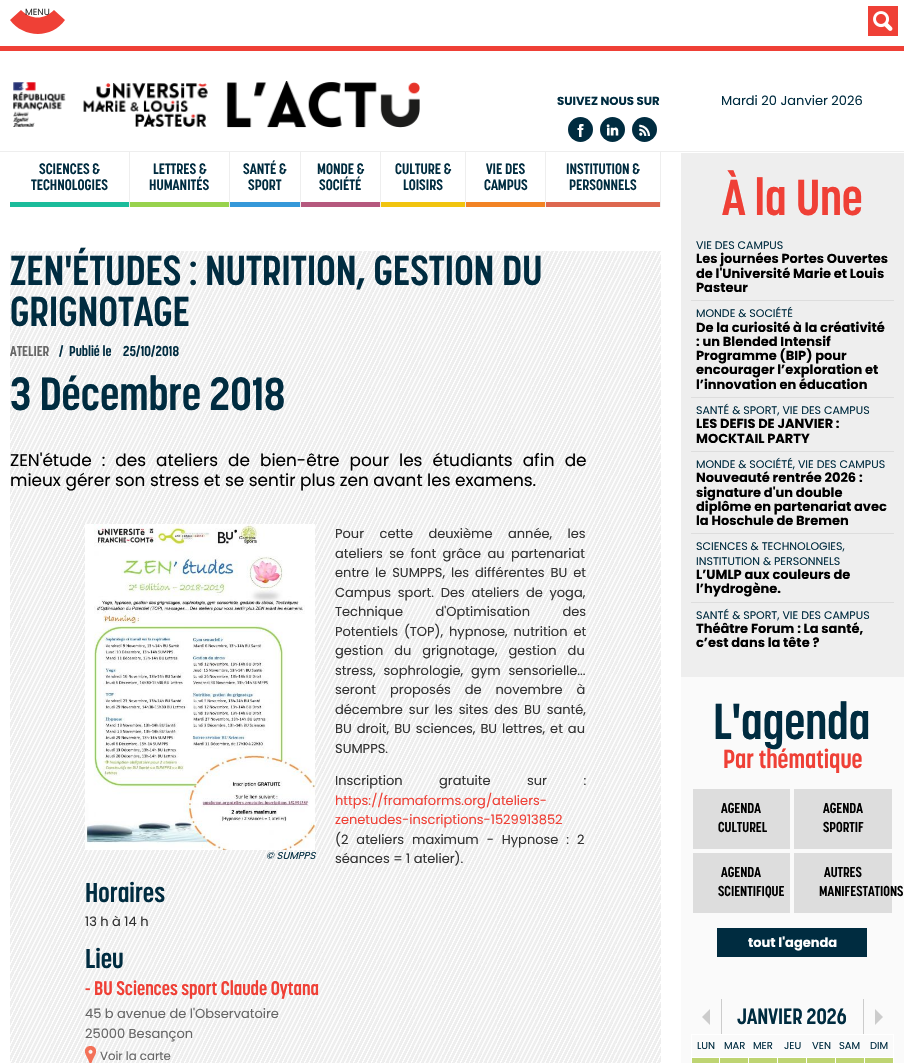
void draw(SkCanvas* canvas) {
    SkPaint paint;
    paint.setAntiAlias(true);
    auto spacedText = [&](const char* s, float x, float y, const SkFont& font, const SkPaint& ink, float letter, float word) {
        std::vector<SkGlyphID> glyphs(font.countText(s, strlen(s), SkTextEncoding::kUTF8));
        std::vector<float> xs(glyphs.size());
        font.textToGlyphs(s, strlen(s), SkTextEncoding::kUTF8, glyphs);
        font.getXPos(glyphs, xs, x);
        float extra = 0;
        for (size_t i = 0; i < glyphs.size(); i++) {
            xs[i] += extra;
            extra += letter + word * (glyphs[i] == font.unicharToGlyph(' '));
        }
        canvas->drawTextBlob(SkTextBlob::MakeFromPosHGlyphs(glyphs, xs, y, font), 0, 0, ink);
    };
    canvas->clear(0xFFFFFFFF);
    paint.setColor(0xFFEF4036);
    canvas->drawRect(SkRect::MakeXYWH(0, 46, 904, 5), paint);
    canvas->drawPath(SkPathBuilder(SkPathFillType::kEvenOdd).moveTo(65, 20).lineTo(54, 10).cubicTo(44, 20, 31, 20, 21, 10).lineTo(10, 20).cubicTo(23, 38, 52, 39, 65, 20).close().detach(), paint);
    SkFont font1(fontMgr->matchFamilyStyle("Poppins", SkFontStyle::Normal()), 9);
    font1.setSubpixel(true);
    paint.setColor(0xFF333333);
    canvas->drawString("MENU", 25, 15, font1, paint);
    paint.setColor(0xFFEF4036);
    canvas->drawRect(SkRect::MakeXYWH(868, 6, 30, 30), paint);
    canvas->drawImageRect(SkImages::DeferredFromEncodedData(SkData::MakeFromFileName("img1.png")), SkRect::MakeXYWH(873, 11, 20, 20), SkSamplingOptions());
    paint.setColor(0xFFEEEEEE);
    canvas->drawRect(SkRect::MakeXYWH(0, 151, 904, 1), paint);
    canvas->drawImageRect(SkImages::DeferredFromEncodedData(SkData::MakeFromFileName("img2.png")), SkRect::MakeXYWH(13, 81, 407, 47), SkSamplingOptions());
    SkFont font2(fontMgr->matchFamilyStyle("Poppins", SkFontStyle::Normal()), 13);
    font2.setSubpixel(true);
    paint.setColor(0xFF002C40);
    canvas->drawString("Mardi 20 Janvier 2026", 721, 105, font2, paint);
    SkFont font3(fontMgr->matchFamilyStyle("Poppins", SkFontStyle::Bold()), 11.75f);
    font3.setSubpixel(true);
    canvas->drawString("SUIVEZ NOUS SUR", 557, 105, font3, paint);
    canvas->drawCircle(580.5f, 129.5f, 12.5f, paint);
    canvas->drawImageRect(SkImages::DeferredFromEncodedData(SkData::MakeFromFileName("img3.png")), SkRect::MakeXYWH(577, 124, 7, 13), SkSamplingOptions());
    canvas->drawCircle(612.5f, 129.5f, 12.5f, paint);
    canvas->drawImageRect(SkImages::DeferredFromEncodedData(SkData::MakeFromFileName("img4.png")), SkRect::MakeXYWH(606, 124, 13, 12), SkSamplingOptions());
    canvas->drawCircle(644.5f, 129.5f, 12.5f, paint);
    canvas->drawImageRect(SkImages::DeferredFromEncodedData(SkData::MakeFromFileName("img5.png")), SkRect::MakeXYWH(639, 124, 11, 12), SkSamplingOptions());
    paint.setColor(0xFFEEEEEE);
    canvas->drawRect(SkRect::MakeXYWH(129, 152, 1, 55), paint);
    paint.setColor(0xFF1BBC9B);
    canvas->drawRect(SkRect::MakeXYWH(10, 202, 119, 5), paint);
    SkFont font4(fontMgr->matchFamilyStyle("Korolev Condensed", SkFontStyle::Bold()), 15);
    font4.setSubpixel(true);
    paint.setColor(0xFF002C40);
    canvas->drawString("SCIENCES &", 39, 174, font4, paint);
    canvas->drawString("TECHNOLOGIES", 31, 190, font4, paint);
    paint.setColor(0xFFEEEEEE);
    canvas->drawRect(SkRect::MakeXYWH(229, 152, 1, 55), paint);
    paint.setColor(0xFF98D24D);
    canvas->drawRect(SkRect::MakeXYWH(130, 202, 99, 5), paint);
    paint.setColor(0xFF002C40);
    canvas->drawString("LETTRES &", 153, 174, font4, paint);
    canvas->drawString("HUMANITÉS", 149, 190, font4, paint);
    paint.setColor(0xFFEEEEEE);
    canvas->drawRect(SkRect::MakeXYWH(300, 152, 1, 55), paint);
    paint.setColor(0xFF3598D9);
    canvas->drawRect(SkRect::MakeXYWH(230, 202, 70, 5), paint);
    paint.setColor(0xFF002C40);
    canvas->drawString("SANTÉ &", 243, 174, font4, paint);
    canvas->drawString("SPORT", 248, 190, font4, paint);
    paint.setColor(0xFFEEEEEE);
    canvas->drawRect(SkRect::MakeXYWH(380, 152, 1, 55), paint);
    paint.setColor(0xFFB5587D);
    canvas->drawRect(SkRect::MakeXYWH(301, 202, 79, 5), paint);
    paint.setColor(0xFF002C40);
    canvas->drawString("MONDE &", 317, 174, font4, paint);
    canvas->drawString("SOCIÉTÉ", 319, 190, font4, paint);
    paint.setColor(0xFFEEEEEE);
    canvas->drawRect(SkRect::MakeXYWH(465, 152, 1, 55), paint);
    paint.setColor(0xFFF1C40F);
    canvas->drawRect(SkRect::MakeXYWH(381, 202, 84, 5), paint);
    paint.setColor(0xFF002C40);
    canvas->drawString("CULTURE &", 395, 174, font4, paint);
    canvas->drawString("LOISIRS", 403, 190, font4, paint);
    paint.setColor(0xFFEEEEEE);
    canvas->drawRect(SkRect::MakeXYWH(545, 152, 1, 55), paint);
    paint.setColor(0xFFF28324);
    canvas->drawRect(SkRect::MakeXYWH(466, 202, 79, 5), paint);
    paint.setColor(0xFF002C40);
    canvas->drawString("VIE DES", 486, 174, font4, paint);
    canvas->drawString("CAMPUS", 484, 190, font4, paint);
    paint.setColor(0xFFEEEEEE);
    canvas->drawRect(SkRect::MakeXYWH(660, 152, 1, 55), paint);
    paint.setColor(0xFFDD674F);
    canvas->drawRect(SkRect::MakeXYWH(546, 202, 114, 5), paint);
    paint.setColor(0xFF002C40);
    canvas->drawString("INSTITUTION &", 566, 174, font4, paint);
    canvas->drawString("PERSONNELS", 569, 190, font4, paint);
    paint.setColor(0xFFEEEEEE);
    canvas->drawRect(SkRect::MakeXYWH(10, 251, 651, 812), paint);
    canvas->drawImageRect(SkImages::DeferredFromEncodedData(SkData::MakeFromFileName("img6.png")), SkRect::MakeXYWH(10, 251, 651, 812), SkSamplingOptions());
    SkFont font5(fontMgr->matchFamilyStyle("Korolev Condensed", SkFontStyle::Bold()), 41.6f);
    font5.setSubpixel(true);
    paint.setColor(0xFF002C40);
    canvas->drawString("ZEN'ÉTUDES : NUTRITION, GESTION DU", 10, 285, font5, paint);
    canvas->drawString("GRIGNOTAGE", 10, 326, font5, paint);
    SkFont font6(fontMgr->matchFamilyStyle("Korolev Condensed", SkFontStyle::Bold()), 14.25f);
    font6.setSubpixel(true);
    paint.setColor(0xFF666666);
    canvas->drawString("ATELIER", 10, 356, font6, paint);
    paint.setColor(0xFF002C40);
    canvas->drawString("/", 59, 356, font6, paint);
    canvas->drawString("Publié le", 69, 356, font6, paint);
    canvas->drawString("25/10/2018", 123, 356, font6, paint);
    SkFont font7(fontMgr->matchFamilyStyle("Korolev Condensed", SkFontStyle::Bold()), 46);
    font7.setSubpixel(true);
    canvas->drawString("3 Décembre 2018", 10, 410, font7, paint);
    SkFont font8(fontMgr->matchFamilyStyle("Poppins", SkFontStyle::Normal()), 16.9f);
    font8.setSubpixel(true);
    paint.setColor(0xFF000000);
    spacedText("ZEN'étude : des ateliers de bien-être pour les étudiants afin de", 10, 466, font8, paint, 0, 5.5f);
    canvas->drawString("mieux gérer son stress et se sentir plus zen avant les examens.", 10, 486, font8, paint);
    canvas->drawImageRect(SkImages::DeferredFromEncodedData(SkData::MakeFromFileName("img7.png")), SkRect::MakeXYWH(85, 524, 230, 326), SkSamplingOptions());
    SkFont font9(fontMgr->matchFamilyStyle("Poppins", SkFontStyle::Italic()), 10);
    font9.setSubpixel(true);
    paint.setColor(0xFF002C40);
    canvas->drawString("© SUMPPS", 266, 859, font9, paint);
    paint.setColor(0xFF333333);
    spacedText("Pour cette deuxième année, les", 335, 538, font2, paint, 0, 12);
    spacedText("ateliers se font grâce au partenariat", 335, 558, font2, paint, 0, 3);
    spacedText("entre le SUMPPS, les différentes BU et", 335, 577, font2, paint, 0, 2.5f);
    spacedText("Campus sport. Des ateliers de yoga,", 335, 597, font2, paint, 0, 3.25f);
    spacedText("Technique d'Optimisation des", 335, 616, font2, paint, 0, 29);
    spacedText("Potentiels (TOP), hypnose, nutrition et", 335, 636, font2, paint, 0, 2.5f);
    spacedText("gestion du grignotage, gestion du", 335, 655, font2, paint, 0, 7.5f);
    spacedText("stress, sophrologie, gym sensorielle...", 335, 675, font2, paint, 0, 4.5f);
    spacedText("seront proposés de novembre à", 335, 694, font2, paint, 0, 10.5f);
    spacedText("décembre sur les sites des BU santé,", 335, 714, font2, paint, 0, 2.5f);
    spacedText("BU droit, BU sciences, BU lettres, et au", 335, 733, font2, paint, 0, 1.5f);
    canvas->drawString("SUMPPS.", 335, 753, font2, paint);
    spacedText("Inscription gratuite sur :", 335, 785, font2, paint, 0, 33);
    paint.setColor(0xFFEF4036);
    canvas->drawString("https://framaforms.org/ateliers-", 335, 805, font2, paint);
    canvas->drawString("zenetudes-inscriptions-1529913852", 335, 824, font2, paint);
    paint.setColor(0xFF333333);
    spacedText("(2 ateliers maximum - Hypnose : 2", 335, 844, font2, paint, 0, 4.5f);
    canvas->drawString("séances = 1 atelier).", 335, 863, font2, paint);
    SkFont font10(fontMgr->matchFamilyStyle("Korolev Condensed", SkFontStyle::Bold()), 27);
    font10.setSubpixel(true);
    paint.setColor(0xFF002C40);
    canvas->drawString("Horaires", 85, 902, font10, paint);
    paint.setColor(0xFF333333);
    canvas->drawString("13 h à 14 h", 85, 926, font2, paint);
    paint.setColor(0xFF002C40);
    canvas->drawString("Lieu", 85, 968, font10, paint);
    SkFont font11(fontMgr->matchFamilyStyle("Korolev Condensed", SkFontStyle::Bold()), 19.5f);
    font11.setSubpixel(true);
    paint.setColor(0xFFEF4036);
    canvas->drawString("- BU Sciences sport Claude Oytana", 85, 995, font11, paint);
    paint.setColor(0xFF666666);
    canvas->drawString("45 b avenue de l'Observatoire", 85, 1018, font2, paint);
    canvas->drawString("25000 Besançon", 85, 1038, font2, paint);
    canvas->drawImageRect(SkImages::DeferredFromEncodedData(SkData::MakeFromFileName("img8.png")), SkRect::MakeXYWH(85, 1046, 12, 17), SkSamplingOptions());
    SkFont font12(fontMgr->matchFamilyStyle("Poppins", SkFontStyle::Normal()), 11.75f);
    font12.setSubpixel(true);
    canvas->drawString("Voir la carte", 100, 1060, font12, paint);
    paint.setColor(0xFFEEEEEE);
    canvas->drawRect(SkRect::MakeXYWH(681, 153, 223, 524), paint);
    SkFont font13(fontMgr->matchFamilyStyle("Korolev Condensed", SkFontStyle::Bold()), 50);
    font13.setSubpixel(true);
    paint.setColor(0xFFEF4036);
    canvas->drawString("À la Une", 722, 215, font13, paint);
    paint.setColor(0xFFDDDDDD);
    canvas->drawRect(SkRect::MakeXYWH(691, 300, 203, 1), paint);
    SkFont font14(fontMgr->matchFamilyStyle("Poppins", SkFontStyle::Normal()), 11);
    font14.setSubpixel(true);
    paint.setColor(0xFF002C40);
    canvas->drawString("VIE DES CAMPUS", 696, 249, font14, paint);
    SkFont font15(fontMgr->matchFamilyStyle("Poppins", SkFontStyle::Bold()), 13);
    font15.setSubpixel(true);
    paint.setColor(0xFF000000);
    canvas->drawString("Les journées Portes Ouvertes", 696, 263, font15, paint);
    canvas->drawString("de l'Université Marie et Louis", 696, 278, font15, paint);
    canvas->drawString("Pasteur", 696, 292, font15, paint);
    paint.setColor(0xFFDDDDDD);
    canvas->drawRect(SkRect::MakeXYWH(691, 397, 203, 1), paint);
    paint.setColor(0xFF002C40);
    canvas->drawString("MONDE & SOCIÉTÉ", 696, 317, font14, paint);
    paint.setColor(0xFF000000);
    canvas->drawString("De la curiosité à la créativité", 696, 332, font15, paint);
    canvas->drawString(": un Blended Intensif", 696, 346, font15, paint);
    canvas->drawString("Programme (BIP) pour", 696, 360, font15, paint);
    canvas->drawString("encourager l’exploration et", 696, 374, font15, paint);
    canvas->drawString("l’innovation en éducation", 696, 389, font15, paint);
    paint.setColor(0xFFDDDDDD);
    canvas->drawRect(SkRect::MakeXYWH(691, 451, 203, 1), paint);
    paint.setColor(0xFF002C40);
    canvas->drawString("SANTÉ & SPORT, VIE DES CAMPUS", 696, 414, font14, paint);
    paint.setColor(0xFF000000);
    canvas->drawString("LES DEFIS DE JANVIER :", 696, 428, font15, paint);
    canvas->drawString("MOCKTAIL PARTY", 696, 443, font15, paint);
    paint.setColor(0xFFDDDDDD);
    canvas->drawRect(SkRect::MakeXYWH(691, 533, 203, 1), paint);
    paint.setColor(0xFF002C40);
    canvas->drawString("MONDE & SOCIÉTÉ, VIE DES CAMPUS", 696, 468, font14, paint);
    paint.setColor(0xFF000000);
    canvas->drawString("Nouveauté rentrée 2026 :", 696, 482, font15, paint);
    canvas->drawString("signature d'un double", 696, 497, font15, paint);
    canvas->drawString("diplôme en partenariat avec", 696, 511, font15, paint);
    canvas->drawString("la Hoschule de Bremen", 696, 525, font15, paint);
    paint.setColor(0xFFDDDDDD);
    canvas->drawRect(SkRect::MakeXYWH(691, 602, 203, 1), paint);
    paint.setColor(0xFF002C40);
    canvas->drawString("SCIENCES & TECHNOLOGIES,", 696, 550, font14, paint);
    canvas->drawString("INSTITUTION & PERSONNELS", 696, 565, font14, paint);
    paint.setColor(0xFF000000);
    canvas->drawString("L’UMLP aux couleurs de", 696, 579, font15, paint);
    canvas->drawString("l’hydrogène.", 696, 593, font15, paint);
    paint.setColor(0xFF002C40);
    canvas->drawString("SANTÉ & SPORT, VIE DES CAMPUS", 696, 619, font14, paint);
    paint.setColor(0xFF000000);
    canvas->drawString("Théâtre Forum : La santé,", 696, 633, font15, paint);
    canvas->drawString("c’est dans la tête ?", 696, 647, font15, paint);
    paint.setColor(0xFFFAFAFA);
    canvas->drawRect(SkRect::MakeXYWH(681, 677, 223, 386), paint);
    paint.setColor(0xFF002C40);
    canvas->drawString("L'agenda", 713, 739, font13, paint);
    SkFont font16(fontMgr->matchFamilyStyle("Korolev Condensed", SkFontStyle::Bold()), 26);
    font16.setSubpixel(true);
    paint.setColor(0xFFEF4036);
    canvas->drawString("Par thématique", 723, 768, font16, paint);
    paint.setColor(0xFFDDDDDD);
    canvas->drawRect(SkRect::MakeXYWH(693, 789, 97, 60), paint);
    paint.setColor(0xFF000000);
    canvas->drawString("AGENDA", 721, 813, font6, paint);
    canvas->drawString("CULTUREL", 718, 832, font6, paint);
    paint.setColor(0xFFDDDDDD);
    canvas->drawRect(SkRect::MakeXYWH(794, 789, 98, 60), paint);
    paint.setColor(0xFF000000);
    canvas->drawString("AGENDA", 823, 813, font6, paint);
    canvas->drawString("SPORTIF", 823, 832, font6, paint);
    paint.setColor(0xFFDDDDDD);
    canvas->drawRect(SkRect::MakeXYWH(693, 853, 97, 60), paint);
    paint.setColor(0xFF000000);
    canvas->drawString("AGENDA", 721, 877, font6, paint);
    canvas->drawString("SCIENTIFIQUE", 718, 896, font6, paint);
    paint.setColor(0xFFDDDDDD);
    canvas->drawRect(SkRect::MakeXYWH(794, 853, 98, 60), paint);
    paint.setColor(0xFF000000);
    canvas->drawString("AUTRES", 824, 877, font6, paint);
    canvas->drawString("MANIFESTATIONS", 819, 896, font6, paint);
    paint.setColor(0xFF002C40);
    canvas->drawRect(SkRect::MakeXYWH(717, 928, 150, 29), paint);
    paint.setColor(0xFFFFFFFF);
    canvas->drawString("tout l'agenda", 748, 947, font15, paint);
    paint.setColor(0xFFCCCCCC);
    canvas->drawRect(SkRect::MakeXYWH(721, 999, 1, 35), paint);
    canvas->drawPath(SkPathBuilder().moveTo(710, 1009).lineTo(710, 1025).lineTo(702, 1017).close().detach(), paint);
    canvas->drawRect(SkRect::MakeXYWH(863, 999, 1, 35), paint);
    canvas->drawPath(SkPathBuilder().moveTo(875, 1025).lineTo(875, 1009).lineTo(883, 1017).close().detach(), paint);
    SkFont font17(fontMgr->matchFamilyStyle("Korolev Condensed", SkFontStyle::Bold()), 22);
    font17.setSubpixel(true);
    paint.setColor(0xFF002C40);
    canvas->drawString("JANVIER 2026", 737, 1024, font17, paint);
    paint.setColor(0xFFFFFFFF);
    canvas->drawRect(SkRect::MakeXYWH(691, 1034, 203, 1), paint);
    canvas->drawRect(SkRect::MakeXYWH(691, 1057, 203, 1), paint);
    canvas->drawRect(SkRect::MakeXYWH(893, 1057, 1, 6), paint);
    canvas->drawRect(SkRect::MakeXYWH(893, 1034, 1, 24), paint);
    canvas->drawRect(SkRect::MakeXYWH(691, 1057, 1, 6), paint);
    canvas->drawRect(SkRect::MakeXYWH(691, 1034, 1, 24), paint);
    SkFont font18(fontMgr->matchFamilyStyle("Poppins", SkFontStyle::Normal()), 10);
    font18.setSubpixel(true);
    paint.setColor(0xFF002C40);
    canvas->drawString("LUN", 697, 1049, font18, paint);
    canvas->drawString("MAR", 724, 1049, font18, paint);
    canvas->drawString("MER", 753, 1049, font18, paint);
    canvas->drawString("JEU", 784, 1049, font18, paint);
    canvas->drawString("VEN", 812, 1049, font18, paint);
    canvas->drawString("SAM", 839, 1049, font18, paint);
    canvas->drawString("DIM", 870, 1049, font18, paint);
    paint.setColor(0xFFBED472);
    canvas->drawRect(SkRect::MakeXYWH(692, 1058, 27, 5), paint);
    paint.setColor(0xFFFFFFFF);
    canvas->drawRect(SkRect::MakeXYWH(719, 1057, 1, 6), paint);
    paint.setColor(0xFFBED472);
    canvas->drawRect(SkRect::MakeXYWH(720, 1058, 28, 5), paint);
    paint.setColor(0xFFFFFFFF);
    canvas->drawRect(SkRect::MakeXYWH(748, 1057, 1, 6), paint);
    paint.setColor(0xFFBED472);
    canvas->drawRect(SkRect::MakeXYWH(749, 1058, 28, 5), paint);
    paint.setColor(0xFFFFFFFF);
    canvas->drawRect(SkRect::MakeXYWH(777, 1057, 1, 6), paint);
    paint.setColor(0xFFBED472);
    canvas->drawRect(SkRect::MakeXYWH(778, 1058, 28, 5), paint);
    paint.setColor(0xFFFFFFFF);
    canvas->drawRect(SkRect::MakeXYWH(806, 1057, 1, 6), paint);
    paint.setColor(0xFFBED472);
    canvas->drawRect(SkRect::MakeXYWH(807, 1058, 28, 5), paint);
    paint.setColor(0xFFFFFFFF);
    canvas->drawRect(SkRect::MakeXYWH(835, 1057, 1, 6), paint);
    paint.setColor(0xFFBED472);
    canvas->drawRect(SkRect::MakeXYWH(836, 1058, 28, 5), paint);
    paint.setColor(0xFFFFFFFF);
    canvas->drawRect(SkRect::MakeXYWH(864, 1057, 1, 6), paint);
    paint.setColor(0xFFBED472);
    canvas->drawRect(SkRect::MakeXYWH(865, 1058, 28, 5), paint);
}
